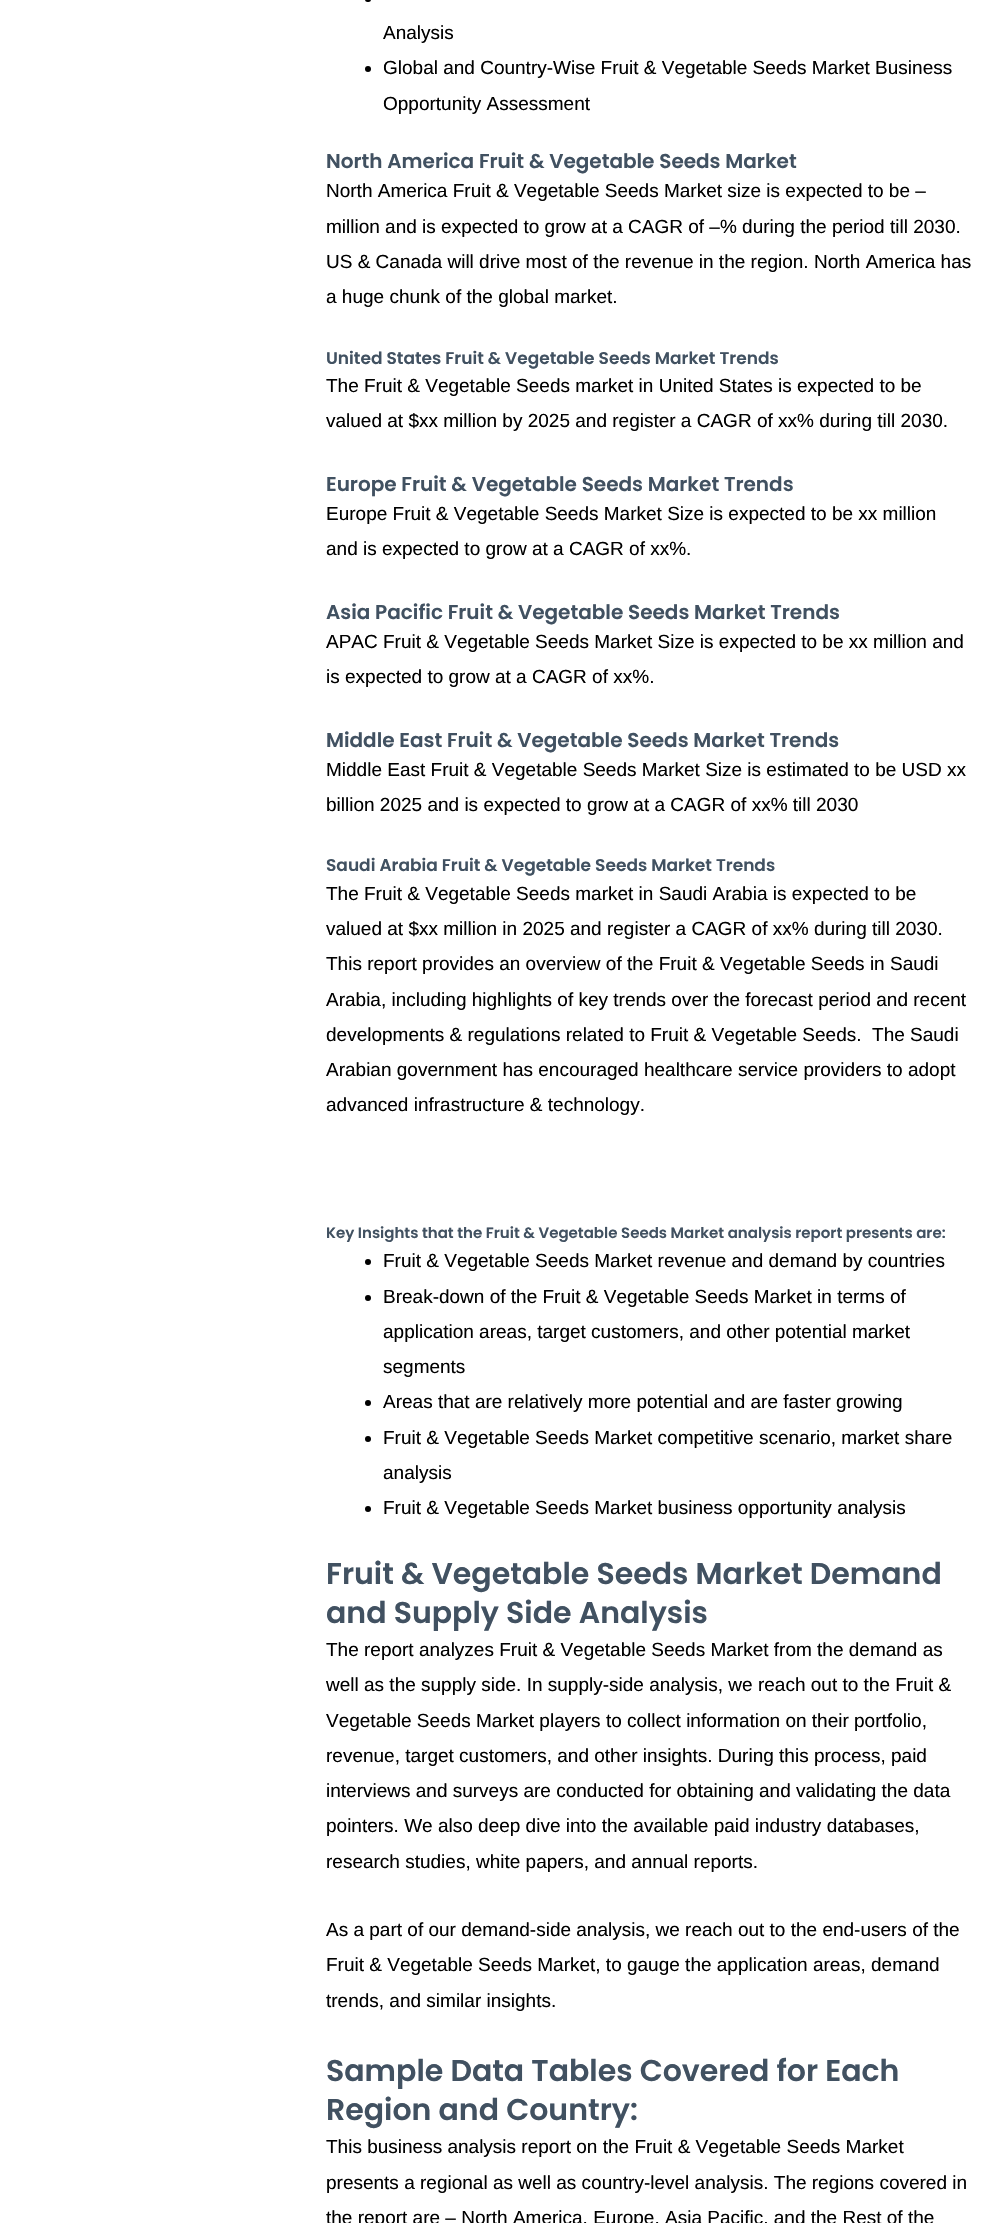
void draw(SkCanvas* canvas) {
    SkPaint paint;
    paint.setAntiAlias(true);
    canvas->clear(0xFFFFFFFF);
    paint.setColor(0xFF000000);
    canvas->drawRoundRect(SkRect::MakeXYWH(365, -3, 6, 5), 3, 3, paint);
    SkFont font1(fontMgr->matchFamilyStyle("Liberation Sans", SkFontStyle::Normal()), 19);
    font1.setSubpixel(true);
    canvas->drawString("Analysis", 383, 39, font1, paint);
    canvas->drawCircle(368, 69, 3, paint);
    canvas->drawString("Global and Country-Wise Fruit & Vegetable Seeds Market Business", 383, 74, font1, paint);
    canvas->drawString("Opportunity Assessment", 383, 110, font1, paint);
    SkFont font2(fontMgr->matchFamilyStyle("Poppins", SkFontStyle(600, SkFontStyle::kNormal_Width, SkFontStyle::kUpright_Slant)), 20);
    font2.setSubpixel(true);
    paint.setColor(0xFF415161);
    canvas->drawString("North America Fruit & Vegetable Seeds Market", 326, 168, font2, paint);
    paint.setColor(0xFF000000);
    canvas->drawString("North America Fruit & Vegetable Seeds Market size is expected to be –", 326, 197, font1, paint);
    canvas->drawString("million and is expected to grow at a CAGR of –% during the period till 2030.", 326, 233, font1, paint);
    canvas->drawString("US & Canada will drive most of the revenue in the region. North America has", 326, 268, font1, paint);
    canvas->drawString("a huge chunk of the global market.", 326, 303, font1, paint);
    SkFont font3(fontMgr->matchFamilyStyle("Poppins", SkFontStyle(600, SkFontStyle::kNormal_Width, SkFontStyle::kUpright_Slant)), 17);
    font3.setSubpixel(true);
    paint.setColor(0xFF415161);
    canvas->drawString("United States Fruit & Vegetable Seeds Market Trends", 326, 364, font3, paint);
    paint.setColor(0xFF000000);
    canvas->drawString("The Fruit & Vegetable Seeds market in United States is expected to be", 326, 392, font1, paint);
    canvas->drawString("valued at $xx million by 2025 and register a CAGR of xx% during till 2030.", 326, 427, font1, paint);
    paint.setColor(0xFF415161);
    canvas->drawString("Europe Fruit & Vegetable Seeds Market Trends", 326, 491, font2, paint);
    paint.setColor(0xFF000000);
    canvas->drawString("Europe Fruit & Vegetable Seeds Market Size is expected to be xx million", 326, 520, font1, paint);
    canvas->drawString("and is expected to grow at a CAGR of xx%.", 326, 555, font1, paint);
    paint.setColor(0xFF415161);
    canvas->drawString("Asia Pacific Fruit & Vegetable Seeds Market Trends", 326, 619, font2, paint);
    paint.setColor(0xFF000000);
    canvas->drawString("APAC Fruit & Vegetable Seeds Market Size is expected to be xx million and", 326, 648, font1, paint);
    canvas->drawString("is expected to grow at a CAGR of xx%.", 326, 683, font1, paint);
    paint.setColor(0xFF415161);
    canvas->drawString("Middle East Fruit & Vegetable Seeds Market Trends", 326, 747, font2, paint);
    paint.setColor(0xFF000000);
    canvas->drawString("Middle East Fruit & Vegetable Seeds Market Size is estimated to be USD xx", 326, 776, font1, paint);
    canvas->drawString("billion 2025 and is expected to grow at a CAGR of xx% till 2030", 326, 811, font1, paint);
    paint.setColor(0xFF415161);
    canvas->drawString("Saudi Arabia Fruit & Vegetable Seeds Market Trends", 326, 871, font3, paint);
    paint.setColor(0xFF000000);
    canvas->drawString("The Fruit & Vegetable Seeds market in Saudi Arabia is expected to be", 326, 900, font1, paint);
    canvas->drawString("valued at $xx million in 2025 and register a CAGR of xx% during till 2030.", 326, 935, font1, paint);
    canvas->drawString("This report provides an overview of the Fruit & Vegetable Seeds in Saudi", 326, 970, font1, paint);
    canvas->drawString("Arabia, including highlights of key trends over the forecast period and recent", 326, 1006, font1, paint);
    canvas->drawString("developments & regulations related to Fruit & Vegetable Seeds.  The Saudi", 326, 1041, font1, paint);
    canvas->drawString("Arabian government has encouraged healthcare service providers to adopt", 326, 1076, font1, paint);
    canvas->drawString("advanced infrastructure & technology.", 326, 1111, font1, paint);
    SkFont font4(fontMgr->matchFamilyStyle("Poppins", SkFontStyle(600, SkFontStyle::kNormal_Width, SkFontStyle::kUpright_Slant)), 15);
    font4.setSubpixel(true);
    paint.setColor(0xFF415161);
    canvas->drawString("Key Insights that the Fruit & Vegetable Seeds Market analysis report presents are:", 326, 1238, font4, paint);
    paint.setColor(0xFF000000);
    canvas->drawCircle(368, 1262, 3, paint);
    canvas->drawString("Fruit & Vegetable Seeds Market revenue and demand by countries", 383, 1267, font1, paint);
    canvas->drawCircle(368, 1298, 3, paint);
    canvas->drawString("Break-down of the Fruit & Vegetable Seeds Market in terms of", 383, 1303, font1, paint);
    canvas->drawString("application areas, target customers, and other potential market", 383, 1338, font1, paint);
    canvas->drawString("segments", 383, 1373, font1, paint);
    canvas->drawCircle(368, 1403, 3, paint);
    canvas->drawString("Areas that are relatively more potential and are faster growing", 383, 1408, font1, paint);
    canvas->drawCircle(368, 1439, 3, paint);
    canvas->drawString("Fruit & Vegetable Seeds Market competitive scenario, market share", 383, 1444, font1, paint);
    canvas->drawString("analysis", 383, 1479, font1, paint);
    canvas->drawCircle(368, 1509, 3, paint);
    canvas->drawString("Fruit & Vegetable Seeds Market business opportunity analysis", 383, 1514, font1, paint);
    SkFont font5(fontMgr->matchFamilyStyle("Poppins", SkFontStyle(600, SkFontStyle::kNormal_Width, SkFontStyle::kUpright_Slant)), 30);
    font5.setSubpixel(true);
    paint.setColor(0xFF415161);
    canvas->drawString("Fruit & Vegetable Seeds Market Demand", 326, 1584, font5, paint);
    canvas->drawString("and Supply Side Analysis", 326, 1623, font5, paint);
    paint.setColor(0xFF000000);
    canvas->drawString("The report analyzes Fruit & Vegetable Seeds Market from the demand as", 326, 1656, font1, paint);
    canvas->drawString("well as the supply side. In supply-side analysis, we reach out to the Fruit &", 326, 1691, font1, paint);
    canvas->drawString("Vegetable Seeds Market players to collect information on their portfolio,", 326, 1727, font1, paint);
    canvas->drawString("revenue, target customers, and other insights. During this process, paid", 326, 1762, font1, paint);
    canvas->drawString("interviews and surveys are conducted for obtaining and validating the data", 326, 1797, font1, paint);
    canvas->drawString("pointers. We also deep dive into the available paid industry databases,", 326, 1832, font1, paint);
    canvas->drawString("research studies, white papers, and annual reports.", 326, 1868, font1, paint);
    canvas->drawString("As a part of our demand-side analysis, we reach out to the end-users of the", 326, 1936, font1, paint);
    canvas->drawString("Fruit & Vegetable Seeds Market, to gauge the application areas, demand", 326, 1971, font1, paint);
    canvas->drawString("trends, and similar insights.", 326, 2007, font1, paint);
    paint.setColor(0xFF415161);
    canvas->drawString("Sample Data Tables Covered for Each", 326, 2081, font5, paint);
    canvas->drawString("Region and Country:", 326, 2120, font5, paint);
    paint.setColor(0xFF000000);
    canvas->drawString("This business analysis report on the Fruit & Vegetable Seeds Market", 326, 2153, font1, paint);
    canvas->drawString("presents a regional as well as country-level analysis. The regions covered in", 326, 2189, font1, paint);
    canvas->drawString("the report are – North America, Europe, Asia Pacific, and the Rest of the", 326, 2224, font1, paint);
}
